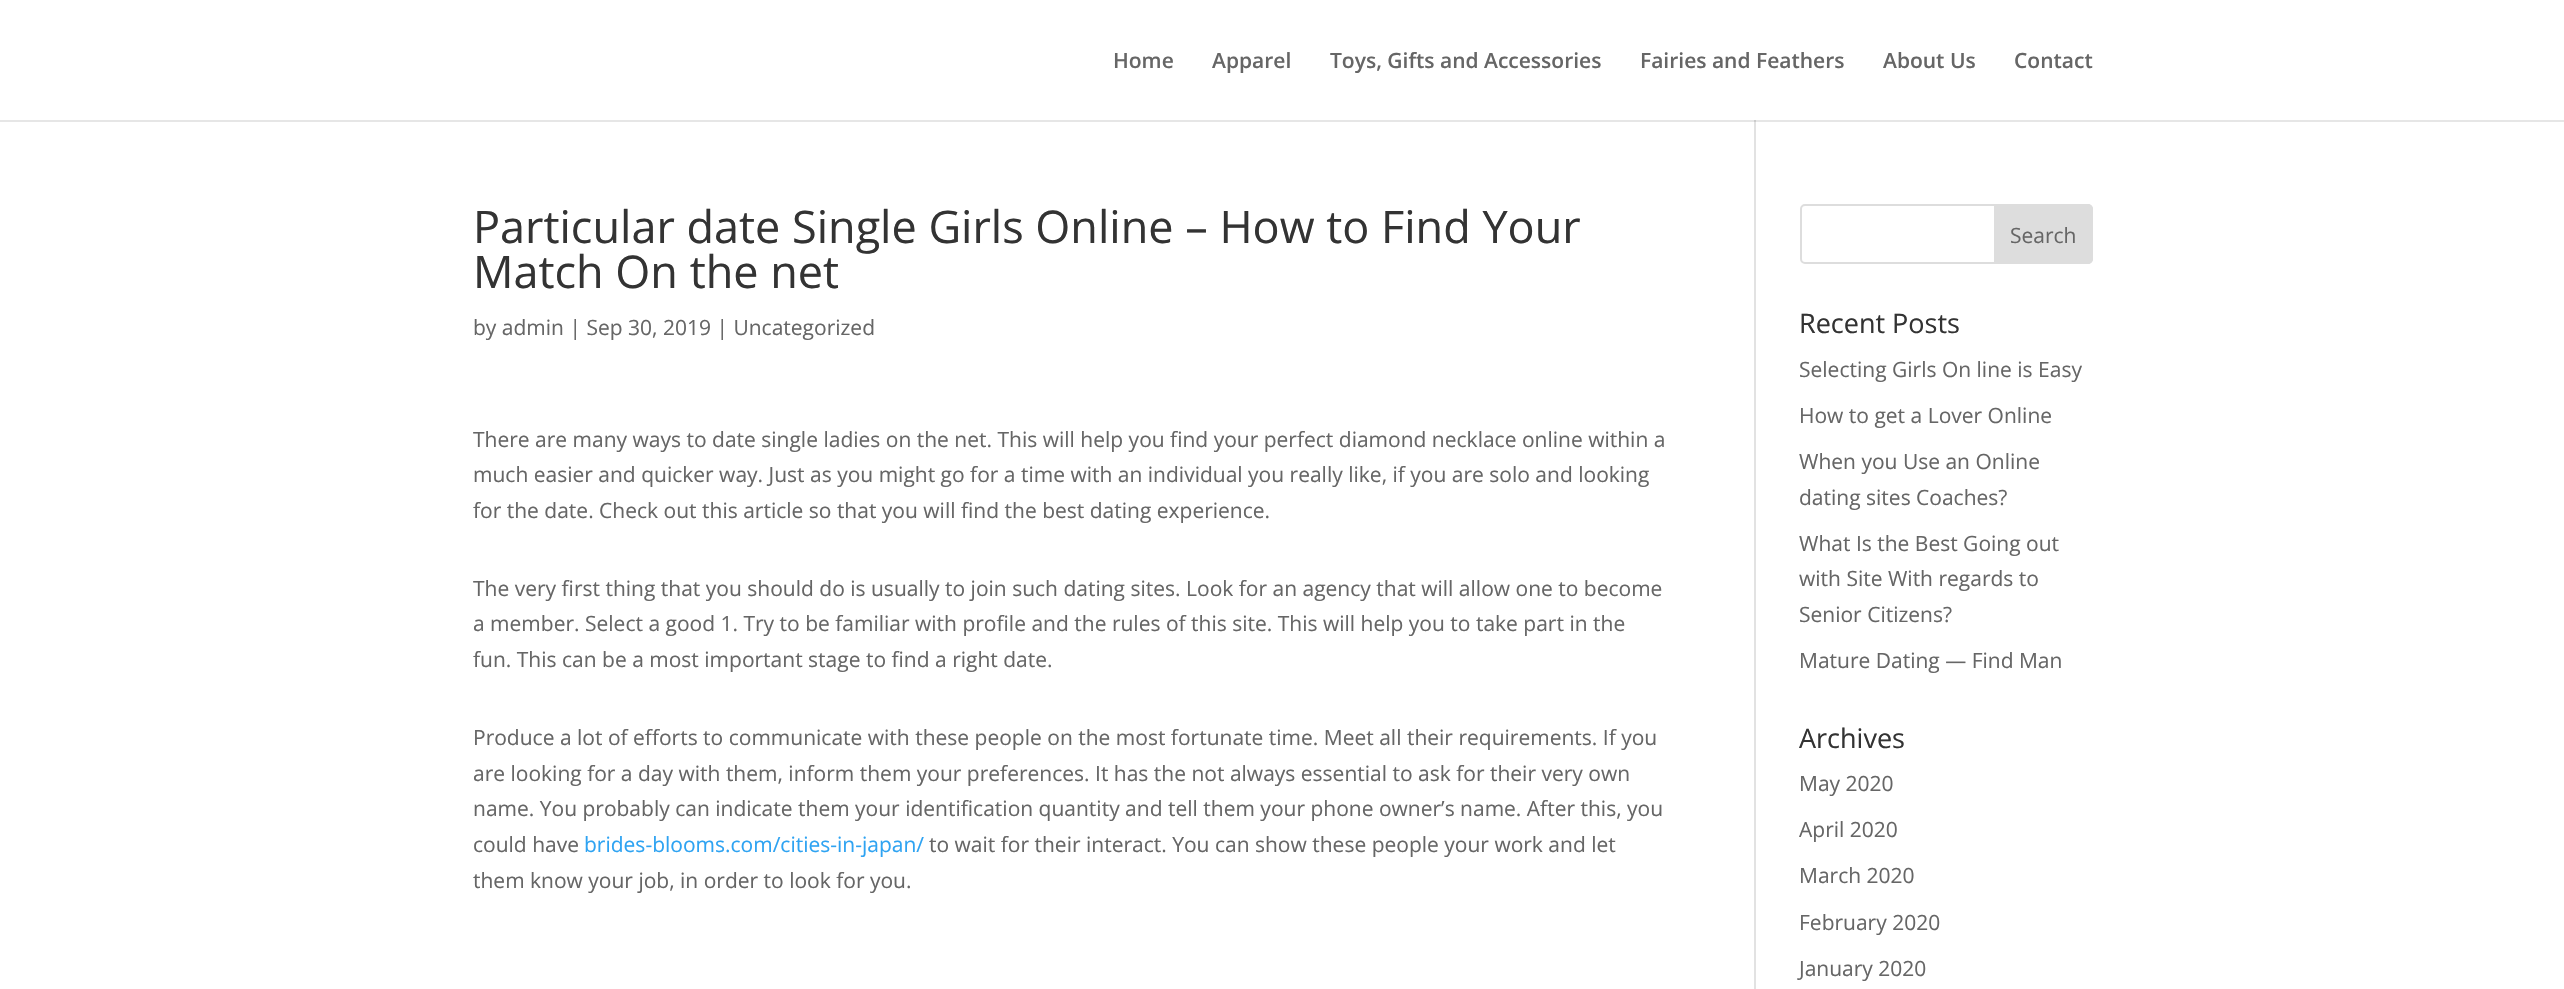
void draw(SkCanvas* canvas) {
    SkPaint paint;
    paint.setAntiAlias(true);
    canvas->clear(0xFFFFFFFF);
    paint.setColor(0xFFE6E6E6);
    canvas->drawRect(SkRect::MakeXYWH(0, 120, 2564, 2), paint);
    paint.setColor(0xFFE2E2E2);
    canvas->drawRect(SkRect::MakeXYWH(1754, 117, 2, 872), paint);
    paint.setColor(0xFFFFFFFF);
    canvas->drawRect(SkRect::MakeXYWH(1754, 117, 2, 3), paint);
    SkFont font1(fontMgr->matchFamilyStyle("Open Sans", SkFontStyle(600, SkFontStyle::kNormal_Width, SkFontStyle::kUpright_Slant)), 21);
    font1.setSubpixel(true);
    paint.setColor(0xFF666666);
    canvas->drawString("Home", 1113, 68, font1, paint);
    canvas->drawString("Apparel", 1212, 68, font1, paint);
    canvas->drawString("Toys, Gifts and Accessories", 1330, 68, font1, paint);
    canvas->drawString("Fairies and Feathers", 1640, 68, font1, paint);
    canvas->drawString("About Us", 1883, 68, font1, paint);
    canvas->drawString("Contact", 2014, 68, font1, paint);
    paint.setColor(0xFFCBCBCB);
    canvas->drawRect(SkRect::MakeXYWH(1754, 120, 2, 2), paint);
    SkFont font2(fontMgr->matchFamilyStyle("Open Sans", SkFontStyle::Normal()), 45);
    font2.setSubpixel(true);
    paint.setColor(0xFF333333);
    canvas->drawString("Particular date Single Girls Online – How to Find Your", 473, 243, font2, paint);
    canvas->drawString("Match On the net", 473, 288, font2, paint);
    SkFont font3(fontMgr->matchFamilyStyle("Open Sans", SkFontStyle::Normal()), 21);
    font3.setSubpixel(true);
    paint.setColor(0xFF666666);
    canvas->drawString("by admin | Sep 30, 2019 | Uncategorized", 473, 335, font3, paint);
    canvas->drawString("There are many ways to date single ladies on the net. This will help you find your perfect diamond necklace online within a", 473, 447, font3, paint);
    canvas->drawString("much easier and quicker way. Just as you might go for a time with an individual you really like, if you are solo and looking", 473, 482, font3, paint);
    canvas->drawString("for the date. Check out this article so that you will find the best dating experience.", 473, 518, font3, paint);
    canvas->drawString("The very first thing that you should do is usually to join such dating sites. Look for an agency that will allow one to become", 473, 596, font3, paint);
    canvas->drawString("a member. Select a good 1. Try to be familiar with profile and the rules of this site. This will help you to take part in the", 473, 631, font3, paint);
    canvas->drawString("fun. This can be a most important stage to find a right date.", 473, 667, font3, paint);
    canvas->drawString("Produce a lot of efforts to communicate with these people on the most fortunate time. Meet all their requirements. If you", 473, 745, font3, paint);
    canvas->drawString("are looking for a day with them, inform them your preferences. It has the not always essential to ask for their very own", 473, 781, font3, paint);
    canvas->drawString("name. You probably can indicate them your identification quantity and tell them your phone owner’s name. After this, you", 473, 816, font3, paint);
    canvas->drawString("could have", 473, 852, font3, paint);
    paint.setColor(0xFF2EA3F2);
    canvas->drawString("brides-blooms.com/cities-in-japan/", 584, 852, font3, paint);
    paint.setColor(0xFF666666);
    canvas->drawString("to wait for their interact. You can show these people your work and let", 929, 852, font3, paint);
    canvas->drawString("them know your job, in order to look for you.", 473, 888, font3, paint);
    paint.setStyle(SkPaint::kStroke_Style);
    paint.setStrokeWidth(2);
    paint.setColor(0xFFDDDDDD);
    canvas->drawRoundRect(SkRect::MakeXYWH(1801, 205, 291, 58), 4, 4, paint);
    paint.setStyle(SkPaint::kFill_Style);
    canvas->drawPath(SkPathBuilder().moveTo(1995, 205).lineTo(2088, 205).cubicTo(2090, 205, 2092, 207, 2092, 209).lineTo(2092, 259).cubicTo(2092, 261, 2090, 263, 2088, 263).lineTo(1995, 263).close().detach(), paint);
    paint.setStyle(SkPaint::kStroke_Style);
    canvas->drawPath(SkPathBuilder().moveTo(1995, 205).lineTo(2088, 205).cubicTo(2090, 205, 2092, 207, 2092, 209).lineTo(2092, 259).cubicTo(2092, 261, 2090, 263, 2088, 263).lineTo(1995, 263).close().detach(), paint);
    paint.setStyle(SkPaint::kFill_Style);
    paint.setColor(0xFF666666);
    canvas->drawString("Search", 2010, 243, font3, paint);
    SkFont font4(fontMgr->matchFamilyStyle("Open Sans", SkFontStyle::Normal()), 27);
    font4.setSubpixel(true);
    paint.setColor(0xFF333333);
    canvas->drawString("Recent Posts", 1799, 333, font4, paint);
    paint.setColor(0xFF666666);
    canvas->drawString("Selecting Girls On line is Easy", 1799, 377, font3, paint);
    canvas->drawString("How to get a Lover Online", 1799, 423, font3, paint);
    canvas->drawString("When you Use an Online", 1799, 469, font3, paint);
    canvas->drawString("dating sites Coaches?", 1799, 505, font3, paint);
    canvas->drawString("What Is the Best Going out", 1799, 551, font3, paint);
    canvas->drawString("with Site With regards to", 1799, 586, font3, paint);
    canvas->drawString("Senior Citizens?", 1799, 622, font3, paint);
    canvas->drawString("Mature Dating — Find Man", 1799, 668, font3, paint);
    paint.setColor(0xFF333333);
    canvas->drawString("Archives", 1799, 748, font4, paint);
    paint.setColor(0xFF666666);
    canvas->drawString("May 2020", 1799, 791, font3, paint);
    canvas->drawString("April 2020", 1799, 837, font3, paint);
    canvas->drawString("March 2020", 1799, 883, font3, paint);
    canvas->drawString("February 2020", 1799, 930, font3, paint);
    canvas->drawString("January 2020", 1799, 976, font3, paint);
}
